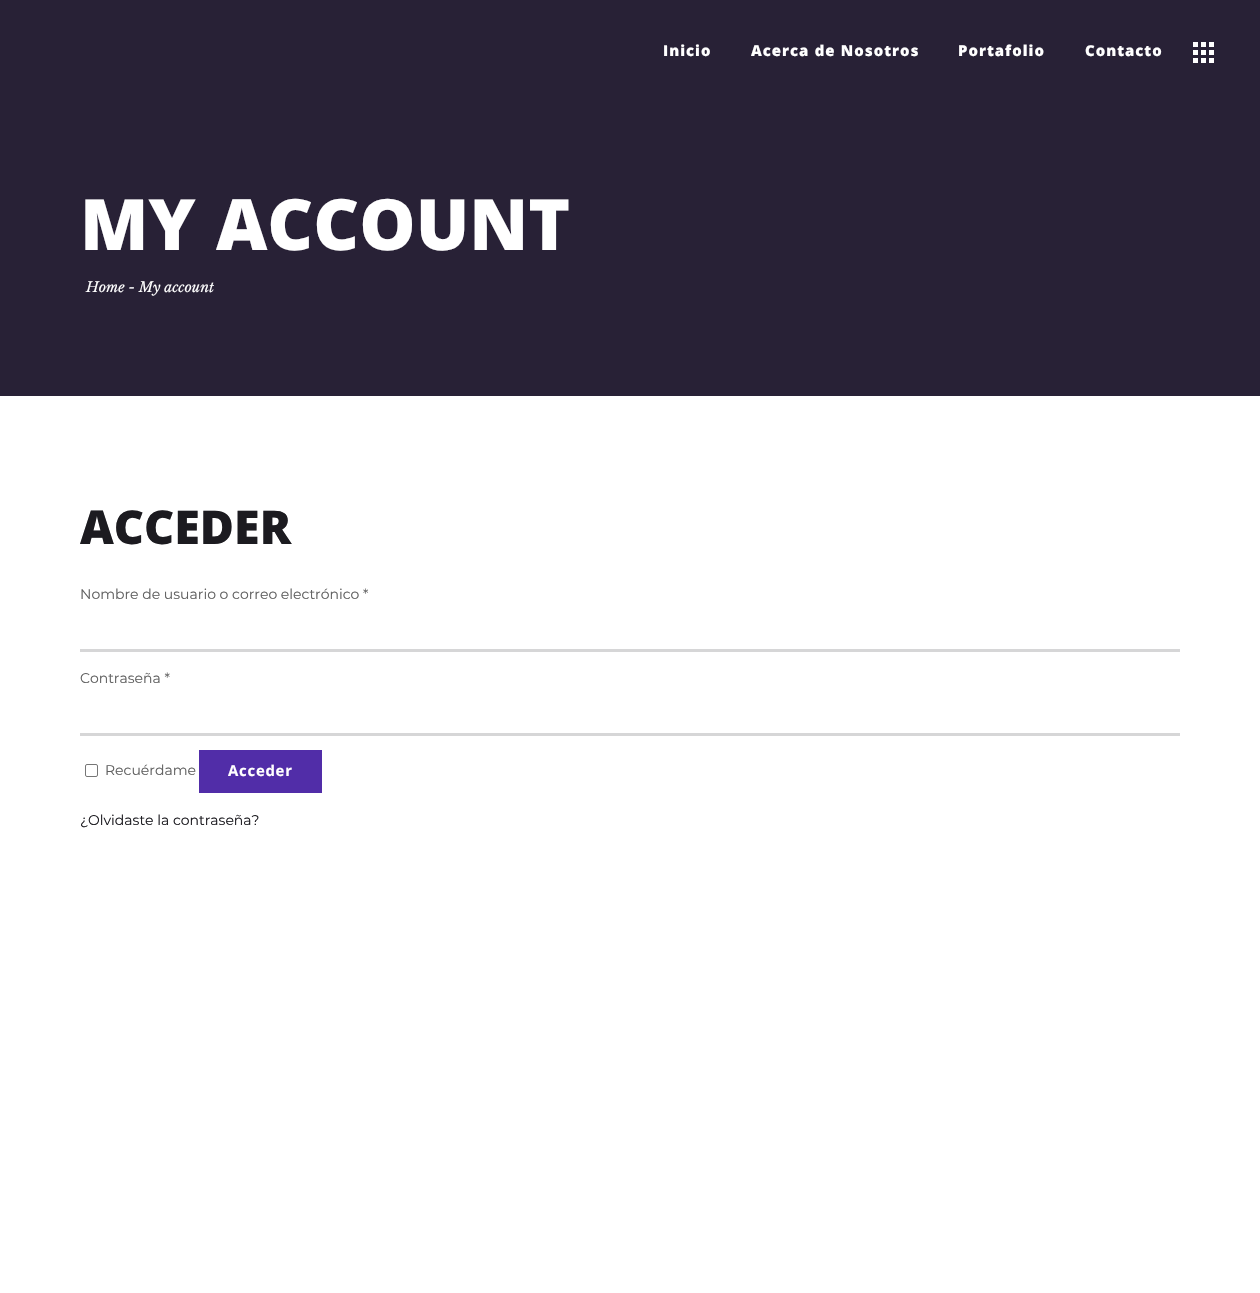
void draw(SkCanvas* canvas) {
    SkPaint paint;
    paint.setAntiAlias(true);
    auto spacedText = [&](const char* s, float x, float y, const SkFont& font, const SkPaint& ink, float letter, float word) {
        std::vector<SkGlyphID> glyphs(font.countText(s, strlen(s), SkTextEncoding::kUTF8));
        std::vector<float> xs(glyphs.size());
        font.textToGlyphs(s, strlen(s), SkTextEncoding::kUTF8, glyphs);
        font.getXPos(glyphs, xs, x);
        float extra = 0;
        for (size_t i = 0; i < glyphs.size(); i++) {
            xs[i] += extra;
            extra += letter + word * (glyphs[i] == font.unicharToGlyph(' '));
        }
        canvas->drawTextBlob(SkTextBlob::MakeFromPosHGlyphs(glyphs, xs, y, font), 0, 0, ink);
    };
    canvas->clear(0xFFFFFFFF);
    paint.setColor(0xFF282136);
    canvas->drawRect(SkRect::MakeXYWH(0, 0, 1260, 396), paint);
    SkFont font1(fontMgr->matchFamilyStyle("Khula", SkFontStyle(800, SkFontStyle::kNormal_Width, SkFontStyle::kUpright_Slant)), 16);
    font1.setSubpixel(true);
    paint.setColor(0xFFFFFFFF);
    spacedText("Inicio", 663, 56, font1, paint, 1, 0);
    spacedText("Acerca de Nosotros", 751, 56, font1, paint, 1, 0);
    spacedText("Portafolio", 958, 56, font1, paint, 1, 0);
    spacedText("Contacto", 1085, 56, font1, paint, 1, 0);
    canvas->drawRect(SkRect::MakeXYWH(1193, 42, 5, 5), paint);
    canvas->drawRect(SkRect::MakeXYWH(1201, 42, 5, 5), paint);
    canvas->drawRect(SkRect::MakeXYWH(1209, 42, 5, 5), paint);
    canvas->drawRect(SkRect::MakeXYWH(1193, 50, 5, 5), paint);
    canvas->drawRect(SkRect::MakeXYWH(1201, 50, 5, 5), paint);
    canvas->drawRect(SkRect::MakeXYWH(1209, 50, 5, 5), paint);
    canvas->drawRect(SkRect::MakeXYWH(1193, 58, 5, 5), paint);
    canvas->drawRect(SkRect::MakeXYWH(1201, 58, 5, 5), paint);
    canvas->drawRect(SkRect::MakeXYWH(1209, 58, 5, 5), paint);
    SkFont font2(fontMgr->matchFamilyStyle("Khula", SkFontStyle(800, SkFontStyle::kNormal_Width, SkFontStyle::kUpright_Slant)), 76);
    font2.setSubpixel(true);
    canvas->drawString("MY ACCOUNT", 80, 250, font2, paint);
    SkFont font3(fontMgr->matchFamilyStyle("Libre Baskerville", SkFontStyle::Italic()), 14);
    font3.setSubpixel(true);
    canvas->drawString("Home - My account", 86, 292, font3, paint);
    SkFont font4(fontMgr->matchFamilyStyle("Khula", SkFontStyle(800, SkFontStyle::kNormal_Width, SkFontStyle::kUpright_Slant)), 50);
    font4.setSubpixel(true);
    paint.setColor(0xFF1C1B20);
    canvas->drawString("ACCEDER", 80, 544, font4, paint);
    SkFont font5(fontMgr->matchFamilyStyle("Montserrat", SkFontStyle::Normal()), 14);
    font5.setSubpixel(true);
    paint.setColor(0xFF606060);
    canvas->drawString("Nombre de usuario o correo electrónico *", 80, 599, font5, paint);
    paint.setColor(0xFFD6D6D7);
    canvas->drawRect(SkRect::MakeXYWH(80, 649, 1100, 3), paint);
    paint.setColor(0xFF606060);
    canvas->drawString("Contraseña *", 80, 683, font5, paint);
    paint.setColor(0xFFD6D6D7);
    canvas->drawRect(SkRect::MakeXYWH(80, 733, 1100, 3), paint);
    paint.setStyle(SkPaint::kStroke_Style);
    paint.setStrokeWidth(1);
    paint.setColor(0xFF767676);
    canvas->drawRoundRect(SkRect::MakeXYWH(85.5f, 764.5f, 12, 12), 1.5f, 1.5f, paint);
    paint.setStyle(SkPaint::kFill_Style);
    paint.setColor(0xFF606060);
    canvas->drawString("Recuérdame", 105, 775, font5, paint);
    paint.setColor(0xFF512DA8);
    canvas->drawRect(SkRect::MakeXYWH(199, 750, 123, 43), paint);
    SkFont font6(fontMgr->matchFamilyStyle("Khula", SkFontStyle::Bold()), 16);
    font6.setSubpixel(true);
    paint.setColor(0xFFFFFFFF);
    spacedText("Acceder", 228, 776, font6, paint, 0.75f, 0);
    paint.setColor(0xFF1C1B20);
    canvas->drawString("¿Olvidaste la contraseña?", 80, 825, font5, paint);
}
